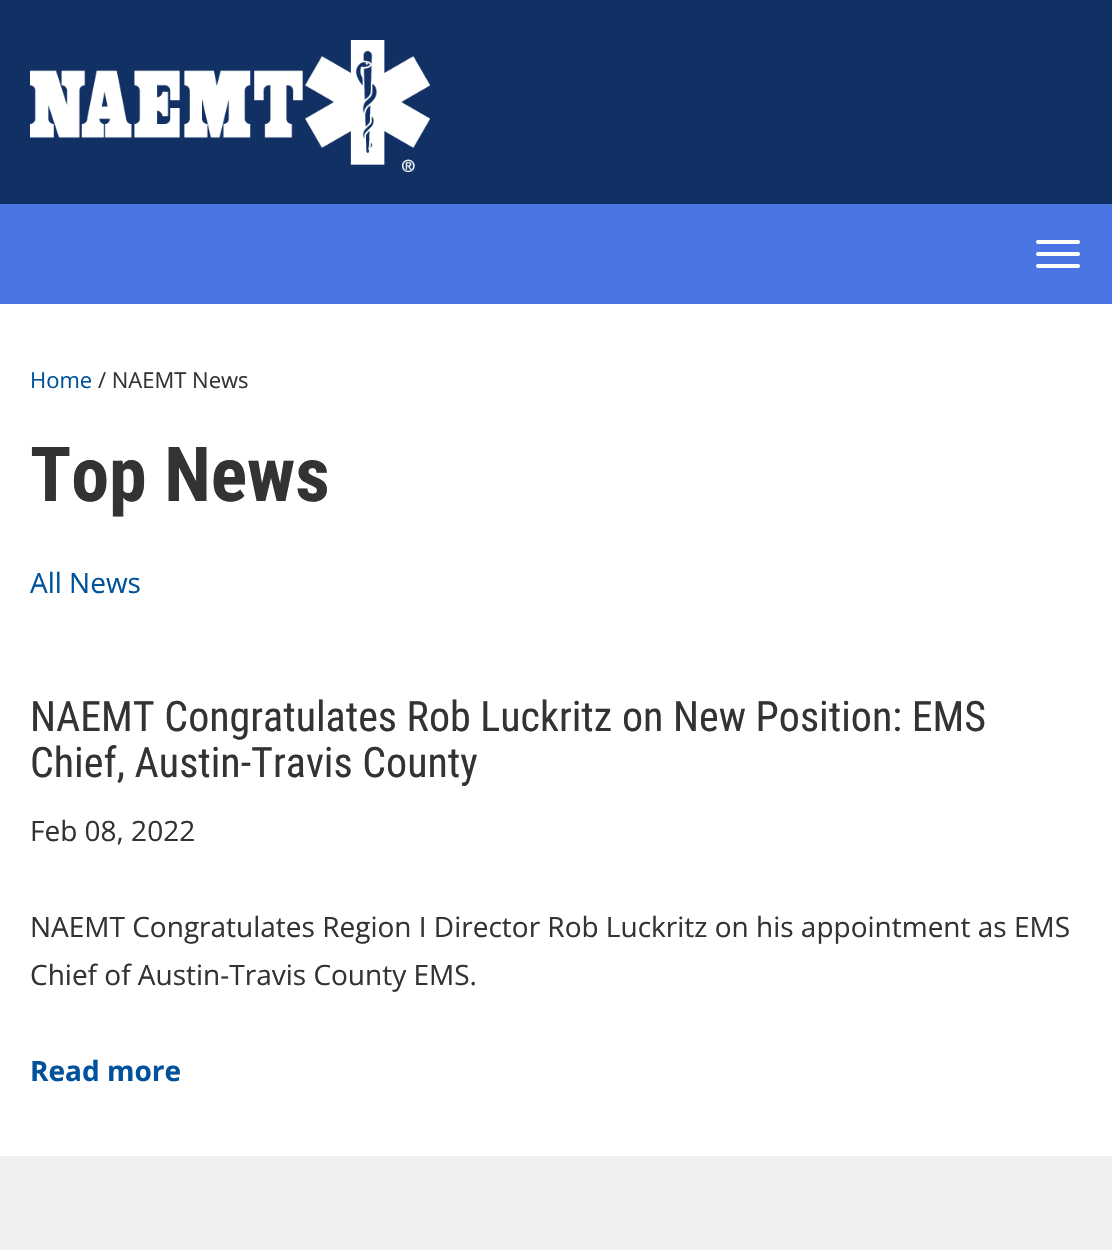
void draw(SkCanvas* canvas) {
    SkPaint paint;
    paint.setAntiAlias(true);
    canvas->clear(0xFFFFFFFF);
    paint.setColor(0xFF113063);
    canvas->drawRect(SkRect::MakeXYWH(0, 0, 1112, 204), paint);
    canvas->drawImageRect(SkImages::DeferredFromEncodedData(SkData::MakeFromFileName("img1.png")), SkRect::MakeXYWH(30, 40, 400, 132), SkSamplingOptions());
    paint.setColor(0xFF4A75E2);
    canvas->drawRect(SkRect::MakeXYWH(0, 204, 1112, 100), paint);
    paint.setColor(0xFFFFFFFF);
    canvas->drawRoundRect(SkRect::MakeXYWH(1036, 240, 44, 4), 2, 2, paint);
    canvas->drawRoundRect(SkRect::MakeXYWH(1036, 252, 44, 4), 2, 2, paint);
    canvas->drawRoundRect(SkRect::MakeXYWH(1036, 264, 44, 4), 2, 2, paint);
    SkFont font1(fontMgr->matchFamilyStyle("Open Sans", SkFontStyle::Normal()), 22);
    font1.setSubpixel(true);
    paint.setColor(0xFF00529C);
    canvas->drawString("Home", 30, 388, font1, paint);
    paint.setColor(0xFF333333);
    canvas->drawString("/ NAEMT News", 98, 388, font1, paint);
    SkFont font2(fontMgr->matchFamilyStyle("Roboto Condensed", SkFontStyle::Bold()), 76);
    font2.setSubpixel(true);
    canvas->drawString("Top News", 30, 501, font2, paint);
    SkFont font3(fontMgr->matchFamilyStyle("Open Sans", SkFontStyle::Normal()), 28);
    font3.setSubpixel(true);
    paint.setColor(0xFF00529C);
    canvas->drawString("All News", 30, 593, font3, paint);
    SkFont font4(fontMgr->matchFamilyStyle("Roboto Condensed", SkFontStyle::Normal()), 42);
    font4.setSubpixel(true);
    paint.setColor(0xFF333333);
    canvas->drawString("NAEMT Congratulates Rob Luckritz on New Position: EMS", 30, 731, font4, paint);
    canvas->drawString("Chief, Austin-Travis County", 30, 777, font4, paint);
    canvas->drawString("Feb 08, 2022", 30, 841, font3, paint);
    canvas->drawString("NAEMT Congratulates Region I Director Rob Luckritz on his appointment as EMS", 30, 937, font3, paint);
    canvas->drawString("Chief of Austin-Travis County EMS.", 30, 985, font3, paint);
    SkFont font5(fontMgr->matchFamilyStyle("Open Sans", SkFontStyle::Bold()), 28);
    font5.setSubpixel(true);
    paint.setColor(0xFF00529C);
    canvas->drawString("Read more", 30, 1081, font5, paint);
    paint.setColor(0xFFEFEFEF);
    canvas->drawRect(SkRect::MakeXYWH(0, 1156, 1112, 94), paint);
}
